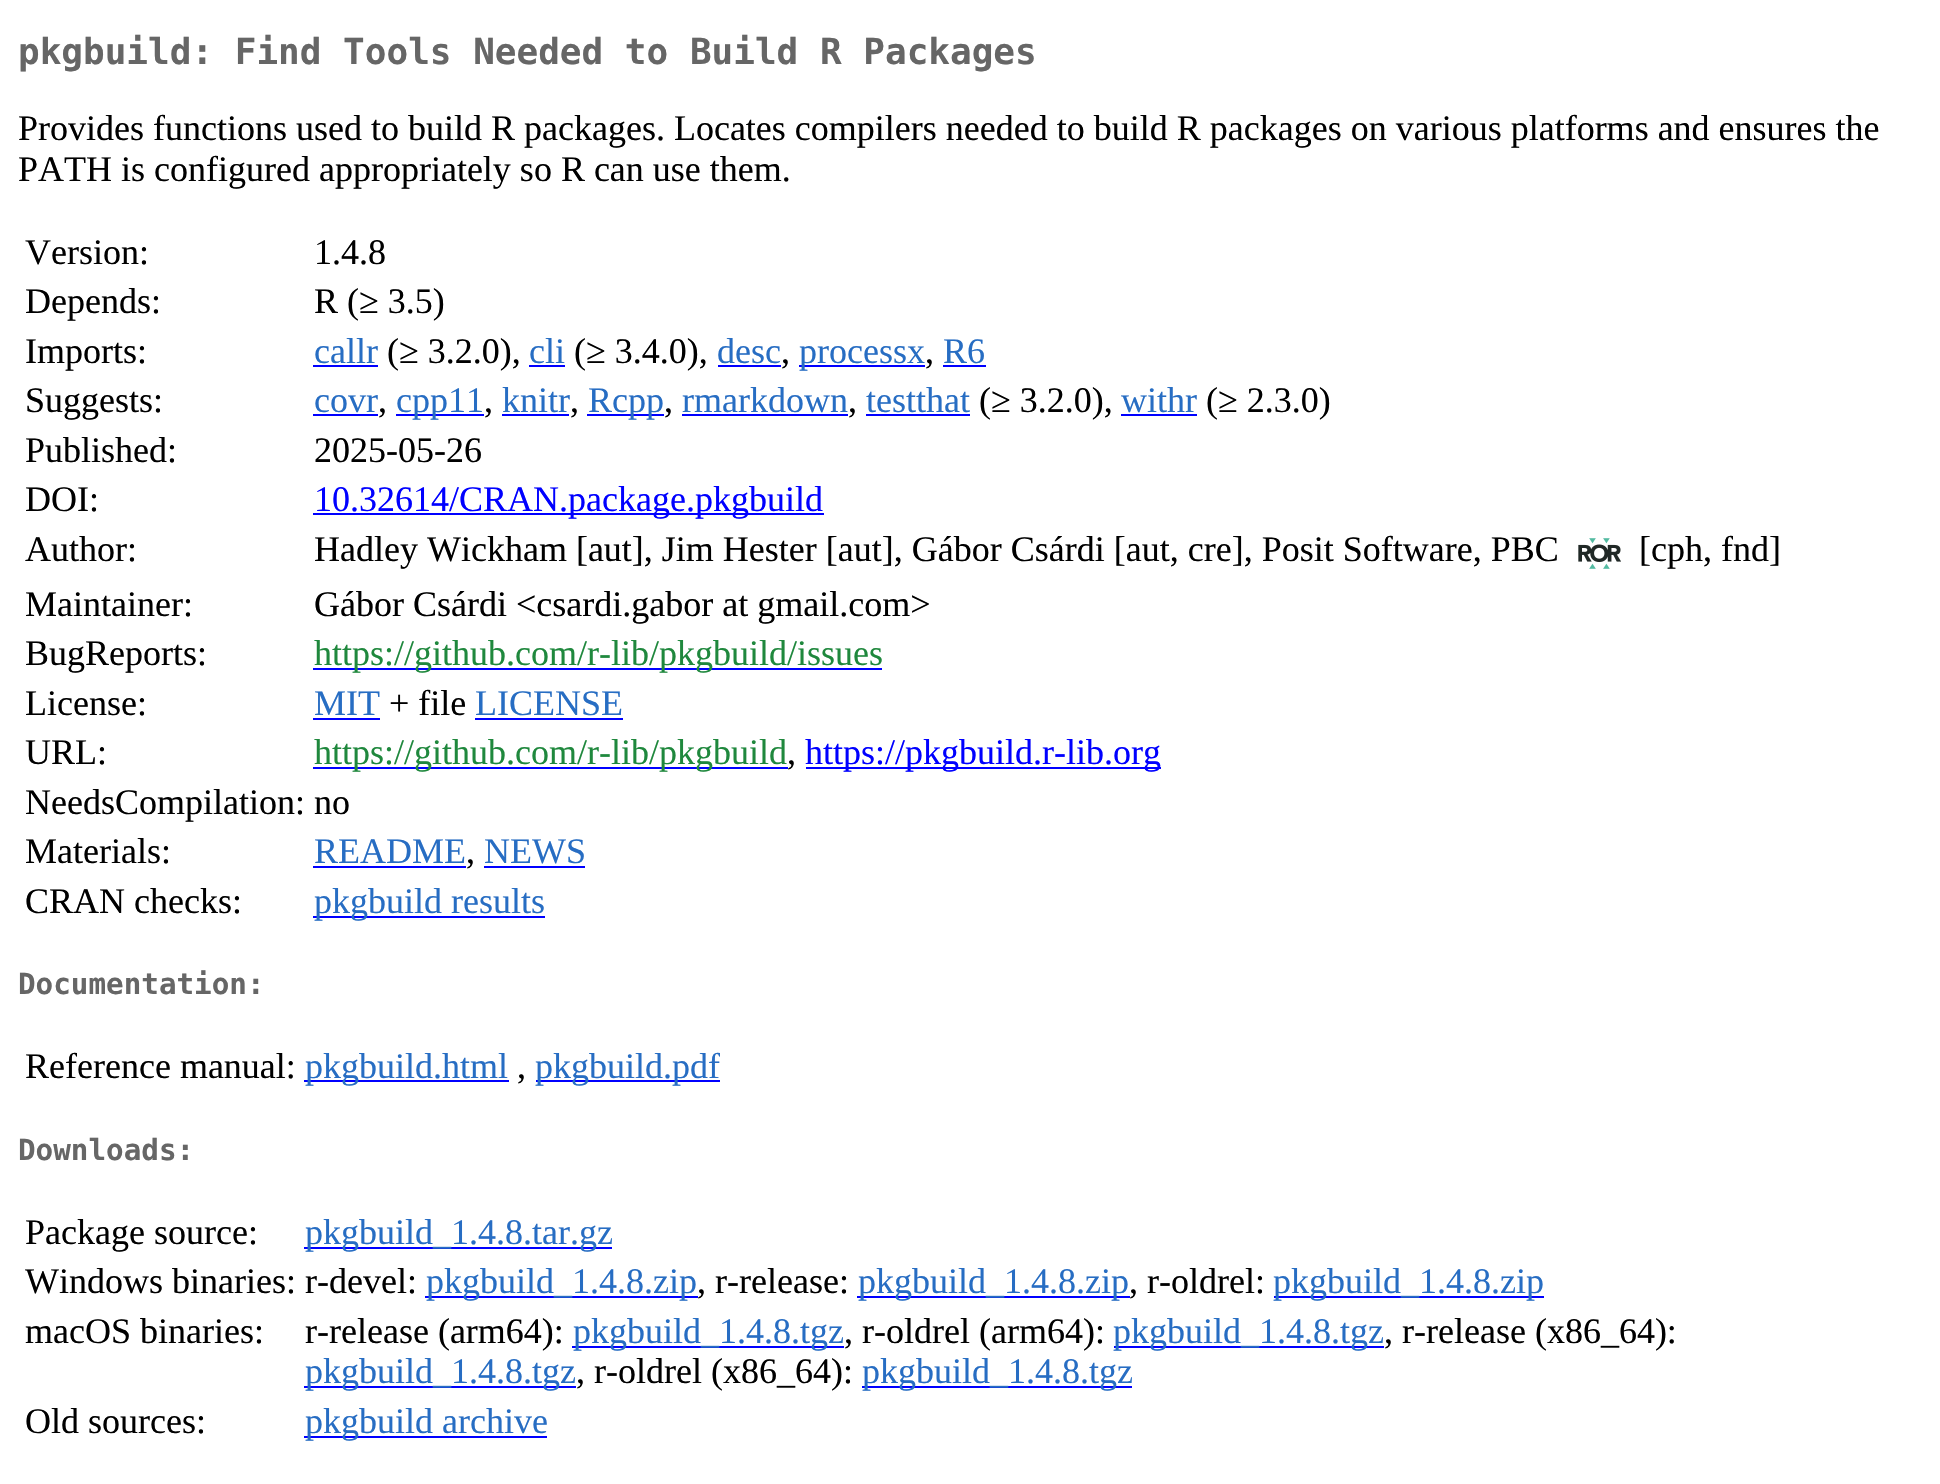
void draw(SkCanvas* canvas) {
    SkPaint paint;
    paint.setAntiAlias(true);
    canvas->clear(0xFFFFFFFF);
    SkFont font1(fontMgr->matchFamilyStyle("DejaVu Sans Mono", SkFontStyle::Bold()), 36);
    font1.setSubpixel(true);
    paint.setColor(0xFF666666);
    canvas->drawString("pkgbuild: Find Tools Needed to Build R Packages", 18, 64, font1, paint);
    SkFont font2(fontMgr->matchFamilyStyle("Liberation Serif", SkFontStyle::Normal()), 36);
    font2.setSubpixel(true);
    paint.setColor(0xFF000000);
    canvas->drawString("Provides functions used to build R packages. Locates compilers needed to build R packages on various platforms and ensures the", 18, 140, font2, paint);
    canvas->drawString("PATH is configured appropriately so R can use them.", 18, 181, font2, paint);
    canvas->drawString("Version:", 25, 264, font2, paint);
    canvas->drawString("1.4.8", 314, 264, font2, paint);
    canvas->drawString("Depends:", 25, 313, font2, paint);
    canvas->drawString("R (≥ 3.5)", 314, 313, font2, paint);
    canvas->drawString("Imports:", 25, 363, font2, paint);
    paint.setColor(0xFF276DC3);
    canvas->drawString("callr", 314, 363, font2, paint);
    paint.setColor(0xFF0000FF);
    canvas->drawRect(SkRect::MakeXYWH(313, 365, 65, 2), paint);
    paint.setColor(0xFF000000);
    canvas->drawString("(≥ 3.2.0),", 387, 363, font2, paint);
    paint.setColor(0xFF276DC3);
    canvas->drawString("cli", 529, 363, font2, paint);
    paint.setColor(0xFF0000FF);
    canvas->drawRect(SkRect::MakeXYWH(529, 365, 36, 2), paint);
    paint.setColor(0xFF000000);
    canvas->drawString("(≥ 3.4.0),", 574, 363, font2, paint);
    paint.setColor(0xFF276DC3);
    canvas->drawString("desc", 717, 363, font2, paint);
    paint.setColor(0xFF0000FF);
    canvas->drawRect(SkRect::MakeXYWH(718, 365, 63, 2), paint);
    paint.setColor(0xFF000000);
    canvas->drawString(",", 781, 363, font2, paint);
    paint.setColor(0xFF0000FF);
    canvas->drawRect(SkRect::MakeXYWH(799, 365, 126, 2), paint);
    paint.setColor(0xFF276DC3);
    canvas->drawString("processx", 799, 363, font2, paint);
    paint.setColor(0xFF000000);
    canvas->drawString(",", 925, 363, font2, paint);
    paint.setColor(0xFF276DC3);
    canvas->drawString("R6", 943, 363, font2, paint);
    paint.setColor(0xFF0000FF);
    canvas->drawRect(SkRect::MakeXYWH(943, 365, 43, 2), paint);
    paint.setColor(0xFF000000);
    canvas->drawString("Suggests:", 25, 412, font2, paint);
    paint.setColor(0xFF276DC3);
    canvas->drawString("covr", 314, 412, font2, paint);
    paint.setColor(0xFF0000FF);
    canvas->drawRect(SkRect::MakeXYWH(313, 414, 65, 2), paint);
    paint.setColor(0xFF000000);
    canvas->drawString(",", 378, 412, font2, paint);
    paint.setColor(0xFF0000FF);
    canvas->drawRect(SkRect::MakeXYWH(396, 414, 88, 2), paint);
    paint.setColor(0xFF276DC3);
    canvas->drawString("cpp11", 396, 412, font2, paint);
    paint.setColor(0xFF000000);
    canvas->drawString(",", 484, 412, font2, paint);
    paint.setColor(0xFF276DC3);
    canvas->drawString("knitr", 502, 412, font2, paint);
    paint.setColor(0xFF0000FF);
    canvas->drawRect(SkRect::MakeXYWH(502, 414, 67, 2), paint);
    paint.setColor(0xFF000000);
    canvas->drawString(",", 570, 412, font2, paint);
    paint.setColor(0xFF0000FF);
    canvas->drawRect(SkRect::MakeXYWH(587, 414, 77, 2), paint);
    paint.setColor(0xFF276DC3);
    canvas->drawString("Rcpp", 588, 412, font2, paint);
    paint.setColor(0xFF000000);
    canvas->drawString(",", 664, 412, font2, paint);
    paint.setColor(0xFF276DC3);
    canvas->drawString("rmarkdown", 682, 412, font2, paint);
    paint.setColor(0xFF0000FF);
    canvas->drawRect(SkRect::MakeXYWH(682, 414, 166, 2), paint);
    paint.setColor(0xFF000000);
    canvas->drawString(",", 848, 412, font2, paint);
    paint.setColor(0xFF276DC3);
    canvas->drawString("testthat", 866, 412, font2, paint);
    paint.setColor(0xFF0000FF);
    canvas->drawRect(SkRect::MakeXYWH(866, 414, 104, 2), paint);
    paint.setColor(0xFF000000);
    canvas->drawString("(≥ 3.2.0),", 979, 412, font2, paint);
    paint.setColor(0xFF276DC3);
    canvas->drawString("withr", 1121, 412, font2, paint);
    paint.setColor(0xFF0000FF);
    canvas->drawRect(SkRect::MakeXYWH(1121, 414, 76, 2), paint);
    paint.setColor(0xFF000000);
    canvas->drawString("(≥ 2.3.0)", 1206, 412, font2, paint);
    canvas->drawString("Published:", 25, 462, font2, paint);
    canvas->drawString("2025-05-26", 314, 462, font2, paint);
    canvas->drawString("DOI:", 25, 511, font2, paint);
    paint.setColor(0xFF0000FF);
    canvas->drawRect(SkRect::MakeXYWH(313, 513, 511, 2), paint);
    canvas->drawString("10.32614/CRAN.package.pkgbuild", 314, 511, font2, paint);
    paint.setColor(0xFF000000);
    canvas->drawString("Author:", 25, 561, font2, paint);
    canvas->drawString("Hadley Wickham [aut], Jim Hester [aut], Gábor Csárdi [aut, cre], Posit Software, PBC", 314, 561, font2, paint);
    canvas->drawImageRect(SkImages::DeferredFromEncodedData(SkData::MakeFromFileName("img1.png")), SkRect::MakeXYWH(1578, 538, 43, 31), SkSamplingOptions());
    canvas->drawString("[cph, fnd]", 1639, 561, font2, paint);
    canvas->drawString("Maintainer:", 25, 616, font2, paint);
    canvas->drawString("Gábor Csárdi <csardi.gabor at gmail.com>", 314, 616, font2, paint);
    canvas->drawString("BugReports:", 25, 665, font2, paint);
    paint.setColor(0xFF0000FF);
    canvas->drawRect(SkRect::MakeXYWH(313, 668, 569, 2), paint);
    paint.setColor(0xFF1F883D);
    canvas->drawString("https://github.com/r-lib/pkgbuild/issues", 314, 665, font2, paint);
    paint.setColor(0xFF000000);
    canvas->drawString("License:", 25, 715, font2, paint);
    paint.setColor(0xFF276DC3);
    canvas->drawString("MIT", 314, 715, font2, paint);
    paint.setColor(0xFF0000FF);
    canvas->drawRect(SkRect::MakeXYWH(313, 718, 67, 2), paint);
    paint.setColor(0xFF000000);
    canvas->drawString("+ file", 389, 715, font2, paint);
    paint.setColor(0xFF276DC3);
    canvas->drawString("LICENSE", 475, 715, font2, paint);
    paint.setColor(0xFF0000FF);
    canvas->drawRect(SkRect::MakeXYWH(475, 718, 148, 2), paint);
    paint.setColor(0xFF000000);
    canvas->drawString("URL:", 25, 764, font2, paint);
    paint.setColor(0xFF0000FF);
    canvas->drawRect(SkRect::MakeXYWH(313, 767, 475, 2), paint);
    paint.setColor(0xFF1F883D);
    canvas->drawString("https://github.com/r-lib/pkgbuild", 314, 764, font2, paint);
    paint.setColor(0xFF000000);
    canvas->drawString(",", 787, 764, font2, paint);
    paint.setColor(0xFF0000FF);
    canvas->drawRect(SkRect::MakeXYWH(806, 767, 355, 2), paint);
    canvas->drawString("https://pkgbuild.r-lib.org", 805, 764, font2, paint);
    paint.setColor(0xFF000000);
    canvas->drawString("NeedsCompilation: no", 25, 814, font2, paint);
    canvas->drawString("Materials:", 25, 863, font2, paint);
    paint.setColor(0xFF276DC3);
    canvas->drawString("README", 314, 863, font2, paint);
    paint.setColor(0xFF0000FF);
    canvas->drawRect(SkRect::MakeXYWH(313, 866, 153, 2), paint);
    paint.setColor(0xFF000000);
    canvas->drawString(",", 466, 863, font2, paint);
    paint.setColor(0xFF276DC3);
    canvas->drawString("NEWS", 484, 863, font2, paint);
    paint.setColor(0xFF0000FF);
    canvas->drawRect(SkRect::MakeXYWH(484, 866, 101, 2), paint);
    paint.setColor(0xFF000000);
    canvas->drawString("CRAN checks:", 25, 913, font2, paint);
    paint.setColor(0xFF0000FF);
    canvas->drawRect(SkRect::MakeXYWH(313, 916, 232, 2), paint);
    paint.setColor(0xFF276DC3);
    canvas->drawString("pkgbuild results", 314, 913, font2, paint);
    SkFont font3(fontMgr->matchFamilyStyle("DejaVu Sans Mono", SkFontStyle::Bold()), 29.25f);
    font3.setSubpixel(true);
    paint.setColor(0xFF666666);
    canvas->drawString("Documentation:", 18, 994, font3, paint);
    paint.setColor(0xFF000000);
    canvas->drawString("Reference manual:", 25, 1078, font2, paint);
    paint.setColor(0xFF0000FF);
    canvas->drawRect(SkRect::MakeXYWH(304, 1080, 205, 2), paint);
    paint.setColor(0xFF276DC3);
    canvas->drawString("pkgbuild.html", 305, 1078, font2, paint);
    paint.setColor(0xFF000000);
    canvas->drawString(",", 517, 1078, font2, paint);
    paint.setColor(0xFF0000FF);
    canvas->drawRect(SkRect::MakeXYWH(536, 1080, 184, 2), paint);
    paint.setColor(0xFF276DC3);
    canvas->drawString("pkgbuild.pdf", 535, 1078, font2, paint);
    paint.setColor(0xFF666666);
    canvas->drawString("Downloads:", 18, 1160, font3, paint);
    paint.setColor(0xFF000000);
    canvas->drawString("Package source:", 25, 1244, font2, paint);
    paint.setColor(0xFF0000FF);
    canvas->drawRect(SkRect::MakeXYWH(304, 1247, 308, 2), paint);
    paint.setColor(0xFF276DC3);
    canvas->drawString("pkgbuild_1.4.8.tar.gz", 305, 1244, font2, paint);
    paint.setColor(0xFF000000);
    canvas->drawString("Windows binaries: r-devel:", 25, 1293, font2, paint);
    paint.setColor(0xFF0000FF);
    canvas->drawRect(SkRect::MakeXYWH(425, 1296, 273, 2), paint);
    paint.setColor(0xFF276DC3);
    canvas->drawString("pkgbuild_1.4.8.zip", 426, 1293, font2, paint);
    paint.setColor(0xFF000000);
    canvas->drawString(", r-release:", 697, 1293, font2, paint);
    paint.setColor(0xFF0000FF);
    canvas->drawRect(SkRect::MakeXYWH(857, 1296, 273, 2), paint);
    paint.setColor(0xFF276DC3);
    canvas->drawString("pkgbuild_1.4.8.zip", 858, 1293, font2, paint);
    paint.setColor(0xFF000000);
    canvas->drawString(", r-oldrel:", 1129, 1293, font2, paint);
    paint.setColor(0xFF0000FF);
    canvas->drawRect(SkRect::MakeXYWH(1274, 1296, 270, 2), paint);
    paint.setColor(0xFF276DC3);
    canvas->drawString("pkgbuild_1.4.8.zip", 1273, 1293, font2, paint);
    paint.setColor(0xFF000000);
    canvas->drawString("macOS binaries:", 25, 1343, font2, paint);
    canvas->drawString("r-release (arm64):", 305, 1343, font2, paint);
    paint.setColor(0xFF0000FF);
    canvas->drawRect(SkRect::MakeXYWH(572, 1346, 272, 2), paint);
    paint.setColor(0xFF276DC3);
    canvas->drawString("pkgbuild_1.4.8.tgz", 573, 1343, font2, paint);
    paint.setColor(0xFF000000);
    canvas->drawString(", r-oldrel (arm64):", 844, 1343, font2, paint);
    paint.setColor(0xFF0000FF);
    canvas->drawRect(SkRect::MakeXYWH(1114, 1346, 270, 2), paint);
    paint.setColor(0xFF276DC3);
    canvas->drawString("pkgbuild_1.4.8.tgz", 1113, 1343, font2, paint);
    paint.setColor(0xFF000000);
    canvas->drawString(", r-release (x86_64):", 1384, 1343, font2, paint);
    paint.setColor(0xFF0000FF);
    canvas->drawRect(SkRect::MakeXYWH(304, 1386, 272, 2), paint);
    paint.setColor(0xFF276DC3);
    canvas->drawString("pkgbuild_1.4.8.tgz", 305, 1383, font2, paint);
    paint.setColor(0xFF000000);
    canvas->drawString(", r-oldrel (x86_64):", 576, 1383, font2, paint);
    paint.setColor(0xFF0000FF);
    canvas->drawRect(SkRect::MakeXYWH(862, 1386, 270, 2), paint);
    paint.setColor(0xFF276DC3);
    canvas->drawString("pkgbuild_1.4.8.tgz", 862, 1383, font2, paint);
    paint.setColor(0xFF000000);
    canvas->drawString("Old sources:", 25, 1433, font2, paint);
    paint.setColor(0xFF0000FF);
    canvas->drawRect(SkRect::MakeXYWH(304, 1436, 243, 2), paint);
    paint.setColor(0xFF276DC3);
    canvas->drawString("pkgbuild archive", 305, 1433, font2, paint);
}
